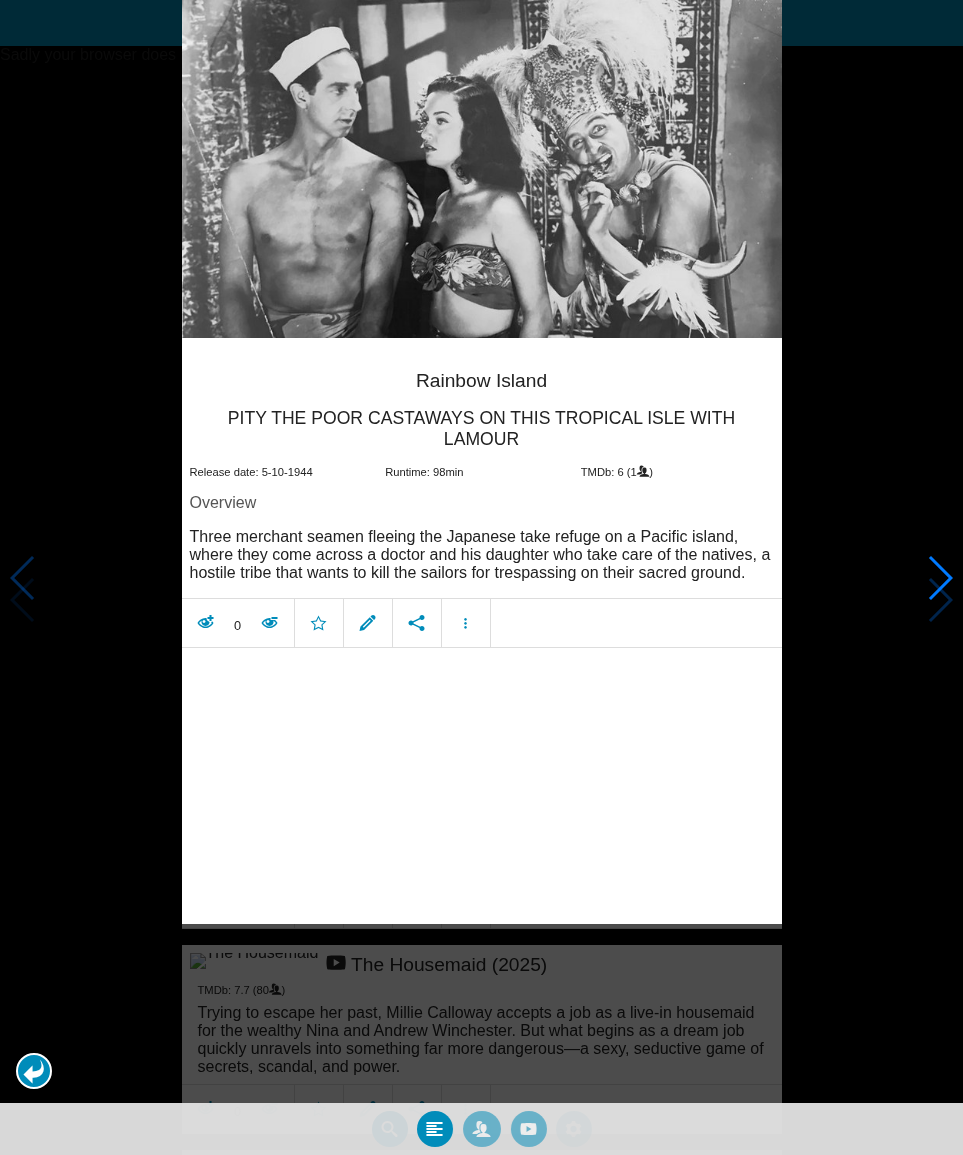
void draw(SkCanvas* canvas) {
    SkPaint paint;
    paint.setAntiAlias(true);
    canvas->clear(0xFFFFFFFF);
    canvas->drawImageRect(SkImages::DeferredFromEncodedData(SkData::MakeFromFileName("img1.png")), SkRect::MakeXYWH(0, 0, 963, 1155), SkSamplingOptions());
}
